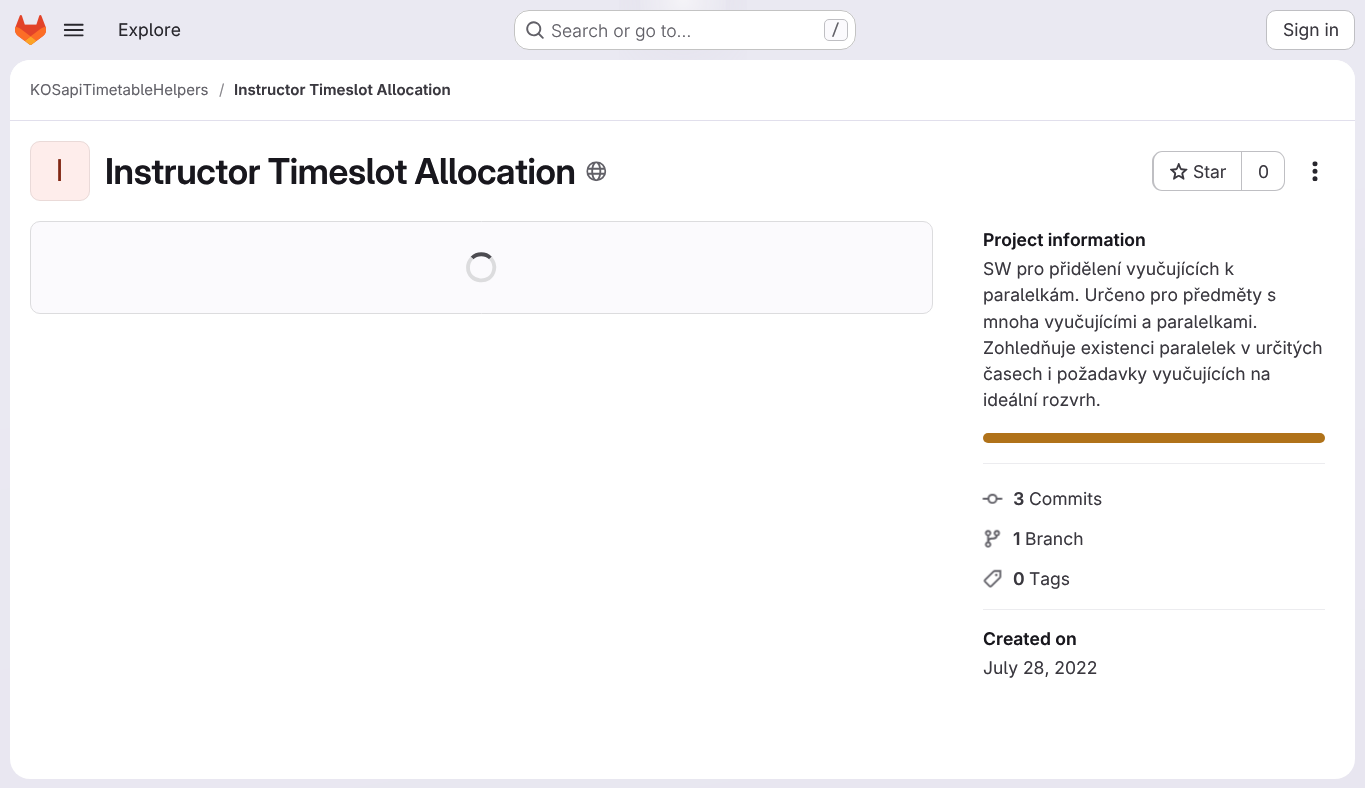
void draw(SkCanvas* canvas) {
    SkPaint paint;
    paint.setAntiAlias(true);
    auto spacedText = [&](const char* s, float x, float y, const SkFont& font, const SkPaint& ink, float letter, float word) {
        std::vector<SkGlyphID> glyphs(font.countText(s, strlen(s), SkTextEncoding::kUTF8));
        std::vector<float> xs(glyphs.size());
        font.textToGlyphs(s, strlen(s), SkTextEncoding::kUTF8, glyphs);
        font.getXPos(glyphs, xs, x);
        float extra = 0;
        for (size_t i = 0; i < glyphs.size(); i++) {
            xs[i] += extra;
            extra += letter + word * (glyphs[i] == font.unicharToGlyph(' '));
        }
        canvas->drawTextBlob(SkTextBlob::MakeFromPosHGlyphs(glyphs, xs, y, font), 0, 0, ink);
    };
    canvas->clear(0xFFFFFFFF);
    {
        const SkColor colors[] = {0xFFE8E6F0, 0xFFEAE9F2};
        const float stops[] = {0, 0.7f};
        const SkPoint ends[] = {{771, 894}, {594, -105}};
        paint.setShader(SkGradientShader::MakeLinear(ends, colors, stops, 2, SkTileMode::kClamp));
        paint.setAlpha(255);
    }
    canvas->drawRect(SkRect::MakeXYWH(0, 0, 1365, 788), paint);
    {
        const SkColor colors[] = {0xFFE4E2ED, 0x00E4E2ED};
        const float stops[] = {0, 0.13f};
        SkMatrix m = SkMatrix::Translate(683, 0).preScale(683, 789);
        paint.setShader(SkGradientShader::MakeRadial({0, 0}, 1, colors, stops, 2, SkTileMode::kClamp, 0, &m));
        paint.setAlpha(255);
    }
    canvas->drawRect(SkRect::MakeXYWH(619, 0, 128, 60), paint);
    {
        const SkColor colors[] = {0xFFE4E2EC, 0x00E4E2EC};
        const float stops[] = {0, 0.09f};
        SkMatrix m = SkMatrix::Translate(683, 0).preScale(683, 789);
        paint.setShader(SkGradientShader::MakeRadial({0, 0}, 1, colors, stops, 2, SkTileMode::kClamp, 0, &m));
        paint.setAlpha(255);
    }
    canvas->drawRect(SkRect::MakeXYWH(659, 0, 48, 30), paint);
    {
        const SkColor colors[] = {0x99FFFFFF, 0x00FFFFFF};
        const float stops[] = {0, 0.05f};
        paint.setShader(SkGradientShader::MakeRadial({683, 0}, 1043, colors, stops, 2, SkTileMode::kClamp));
        paint.setAlpha(255);
    }
    canvas->drawRect(SkRect::MakeXYWH(640, 0, 86, 44), paint);
    canvas->drawImageRect(SkImages::DeferredFromEncodedData(SkData::MakeFromFileName("img1.png")), SkRect::MakeXYWH(15, 15, 31, 30), SkSamplingOptions());
    canvas->drawImageRect(SkImages::DeferredFromEncodedData(SkData::MakeFromFileName("img2.png")), SkRect::MakeXYWH(63, 23, 21, 14), SkSamplingOptions());
    SkFont font1(fontMgr->matchFamilyStyle("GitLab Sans", SkFontStyle::Normal()), 17.5f);
    font1.setSubpixel(true);
    paint.setShader(nullptr);
    paint.setColor(0xFF28272D);
    canvas->drawString("Explore", 118, 36, font1, paint);
    paint.setColor(0xFFFFFFFF);
    canvas->drawRoundRect(SkRect::MakeXYWH(514, 10, 342, 40), 15, 15, paint);
    paint.setStyle(SkPaint::kStroke_Style);
    paint.setStrokeWidth(1);
    paint.setColor(0x3D050506);
    canvas->drawRoundRect(SkRect::MakeXYWH(514.5f, 10.5f, 341, 39), 14.5f, 14.5f, paint);
    canvas->drawImageRect(SkImages::DeferredFromEncodedData(SkData::MakeFromFileName("img3.png")), SkRect::MakeXYWH(526, 21, 18, 18), SkSamplingOptions());
    SkFont font2(fontMgr->matchFamilyStyle("GitLab Sans", SkFontStyle(300, SkFontStyle::kNormal_Width, SkFontStyle::kUpright_Slant)), 17.5f);
    font2.setSubpixel(true);
    paint.setStyle(SkPaint::kFill_Style);
    paint.setColor(0xFF626168);
    canvas->drawString("Search or go to…", 551, 37, font2, paint);
    paint.setColor(0xFFFBFAFD);
    canvas->drawRoundRect(SkRect::MakeXYWH(824.5f, 19.5f, 23, 21), 4.5f, 4.5f, paint);
    paint.setStyle(SkPaint::kStroke_Style);
    paint.setColor(0xFFBFBFC3);
    canvas->drawRoundRect(SkRect::MakeXYWH(824.5f, 19.5f, 23, 21), 4.5f, 4.5f, paint);
    SkFont font3(fontMgr->matchFamilyStyle("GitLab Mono", SkFontStyle(500, SkFontStyle::kNormal_Width, SkFontStyle::kUpright_Slant)), 15);
    font3.setSubpixel(true);
    paint.setStyle(SkPaint::kFill_Style);
    paint.setColor(0xFF626168);
    canvas->drawString("/", 831, 35, font3, paint);
    paint.setColor(0xFFFFFFFF);
    canvas->drawRoundRect(SkRect::MakeXYWH(1266.5f, 10.5f, 88, 39), 9.5f, 9.5f, paint);
    paint.setStyle(SkPaint::kStroke_Style);
    paint.setColor(0xFFBFBFC3);
    canvas->drawRoundRect(SkRect::MakeXYWH(1266.5f, 10.5f, 88, 39), 9.5f, 9.5f, paint);
    paint.setStyle(SkPaint::kFill_Style);
    paint.setColor(0xFF3A383F);
    canvas->drawString("Sign in", 1283, 36, font1, paint);
    paint.setColor(0xFFFFFFFF);
    canvas->drawRoundRect(SkRect::MakeXYWH(10, 60, 1345, 719), 20, 20, paint);
    canvas->drawPath(SkPathBuilder().moveTo(30, 60).lineTo(1335, 60).cubicTo(1346, 60, 1355, 69, 1355, 80).lineTo(1355, 121).lineTo(10, 121).lineTo(10, 80).cubicTo(10, 69, 19, 60, 30, 60).close().detach(), paint);
    paint.setColor(0xFFE1DFEC);
    canvas->drawRect(SkRect::MakeXYWH(10, 120, 1345, 1), paint);
    SkFont font4(fontMgr->matchFamilyStyle("GitLab Sans", SkFontStyle::Normal()), 15);
    font4.setSubpixel(true);
    paint.setColor(0xFF626168);
    canvas->drawString("KOSapiTimetableHelpers", 30, 95, font4, paint);
    paint.setColor(0xFF89888D);
    canvas->drawString("/", 219, 95, font4, paint);
    SkFont font5(fontMgr->matchFamilyStyle("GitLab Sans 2", SkFontStyle(600, SkFontStyle::kNormal_Width, SkFontStyle::kUpright_Slant)), 15);
    font5.setSubpixel(true);
    paint.setColor(0xFF3A383F);
    canvas->drawString("Instructor Timeslot Allocation", 234, 95, font5, paint);
    paint.setColor(0xFFFEEDEB);
    canvas->drawRoundRect(SkRect::MakeXYWH(30, 141, 60, 60), 10, 10, paint);
    paint.setStyle(SkPaint::kStroke_Style);
    paint.setColor(0x14050506);
    canvas->drawRoundRect(SkRect::MakeXYWH(30.5f, 141.5f, 59, 59), 9.5f, 9.5f, paint);
    SkFont font6(fontMgr->matchFamilyStyle("GitLab Sans 2", SkFontStyle::Normal()), 30);
    font6.setSubpixel(true);
    paint.setStyle(SkPaint::kFill_Style);
    paint.setColor(0xFF812713);
    canvas->drawString("I", 56, 181, font6, paint);
    SkFont font7(fontMgr->matchFamilyStyle("GitLab Sans", SkFontStyle(600, SkFontStyle::kNormal_Width, SkFontStyle::kUpright_Slant)), 35.6f);
    font7.setSubpixel(true);
    paint.setColor(0xFF18171D);
    spacedText("Instructor Timeslot Allocation", 105, 184, font7, paint, -0.35f, 0);
    canvas->drawImageRect(SkImages::DeferredFromEncodedData(SkData::MakeFromFileName("img4.png")), SkRect::MakeXYWH(586, 161, 21, 21), SkSamplingOptions());
    paint.setColor(0xFFBFBFC3);
    canvas->drawPath(SkPathBuilder(SkPathFillType::kEvenOdd).moveTo(1162, 151).lineTo(1241, 151).lineTo(1241, 191).lineTo(1162, 191).cubicTo(1157, 191, 1152, 187, 1152, 181).lineTo(1152, 161).cubicTo(1152, 156, 1157, 151, 1162, 151).close().moveTo(1162, 152).lineTo(1241, 152).lineTo(1241, 190).lineTo(1162, 190).cubicTo(1158, 190, 1154, 186, 1154, 181).lineTo(1154, 161).cubicTo(1154, 156, 1158, 152, 1162, 152).close().detach(), paint);
    canvas->drawImageRect(SkImages::DeferredFromEncodedData(SkData::MakeFromFileName("img5.png")), SkRect::MakeXYWH(1170, 163, 18, 17), SkSamplingOptions());
    paint.setColor(0xFF3A383F);
    canvas->drawString("Star", 1193, 178, font1, paint);
    paint.setColor(0xFFBFBFC3);
    canvas->drawPath(SkPathBuilder(SkPathFillType::kEvenOdd).moveTo(1242, 151).lineTo(1275, 151).cubicTo(1281, 151, 1285, 156, 1285, 161).lineTo(1285, 181).cubicTo(1285, 187, 1281, 191, 1275, 191).lineTo(1242, 191).close().moveTo(1242, 152).lineTo(1275, 152).cubicTo(1280, 152, 1284, 156, 1284, 161).lineTo(1284, 181).cubicTo(1284, 186, 1280, 190, 1275, 190).lineTo(1242, 190).close().detach(), paint);
    canvas->drawRect(SkRect::MakeXYWH(1241, 151, 1, 40), paint);
    paint.setColor(0xFF3A383F);
    canvas->drawString("0", 1258, 178, font1, paint);
    canvas->drawImageRect(SkImages::DeferredFromEncodedData(SkData::MakeFromFileName("img6.png")), SkRect::MakeXYWH(1312, 161, 6, 21), SkSamplingOptions());
    paint.setColor(0xFFFBFAFD);
    canvas->drawRoundRect(SkRect::MakeXYWH(30.5f, 221.5f, 902, 92), 9.5f, 9.5f, paint);
    paint.setStyle(SkPaint::kStroke_Style);
    paint.setColor(0xFFDCDCDE);
    canvas->drawRoundRect(SkRect::MakeXYWH(30.5f, 221.5f, 902, 92), 9.5f, 9.5f, paint);
    paint.setStrokeWidth(3.8f);
    paint.setColor(0xFF4C4B51);
    canvas->drawPath(SkPathBuilder().moveTo(472, 258).cubicTo(477, 253, 485.5f, 253, 490.5f, 258).detach(), paint);
    paint.setColor(0xFFDCDCDE);
    canvas->drawPath(SkPathBuilder().moveTo(490.5f, 258).cubicTo(493.5f, 261.5f, 495, 266, 494, 270).cubicTo(491, 285.5f, 468, 283, 468, 267.5f).cubicTo(468, 264, 469.5f, 260.5f, 472, 258).detach(), paint);
    paint.setStyle(SkPaint::kFill_Style);
    paint.setColor(0xFFECECEF);
    canvas->drawRect(SkRect::MakeXYWH(983, 463, 342, 1), paint);
    SkFont font8(fontMgr->matchFamilyStyle("GitLab Sans 2", SkFontStyle(600, SkFontStyle::kNormal_Width, SkFontStyle::kUpright_Slant)), 17.5f);
    font8.setSubpixel(true);
    paint.setColor(0xFF18171D);
    canvas->drawString("Project information", 983, 246, font8, paint);
    paint.setColor(0xFF3A383F);
    canvas->drawString("SW pro přidělení vyučujících k", 983, 275, font1, paint);
    canvas->drawString("paralelkám. Určeno pro předměty s", 983, 301, font1, paint);
    canvas->drawString("mnoha vyučujícími a paralelkami.", 983, 328, font1, paint);
    canvas->drawString("Zohledňuje existenci paralelek v určitých", 983, 354, font1, paint);
    canvas->drawString("časech i požadavky vyučujících na", 983, 380, font1, paint);
    canvas->drawString("ideální rozvrh.", 983, 406, font1, paint);
    paint.setColor(0xFFB07219);
    canvas->drawRoundRect(SkRect::MakeXYWH(983, 433, 342, 10), 5, 5, paint);
    paint.setColor(0xFFECECEF);
    canvas->drawRect(SkRect::MakeXYWH(983, 609, 342, 1), paint);
    canvas->drawImageRect(SkImages::DeferredFromEncodedData(SkData::MakeFromFileName("img7.png")), SkRect::MakeXYWH(982, 493, 21, 11), SkSamplingOptions());
    paint.setColor(0xFF3A383F);
    canvas->drawString("3", 1013, 505, font8, paint);
    canvas->drawString("Commits", 1029, 505, font1, paint);
    canvas->drawImageRect(SkImages::DeferredFromEncodedData(SkData::MakeFromFileName("img8.png")), SkRect::MakeXYWH(984, 529, 17, 19), SkSamplingOptions());
    canvas->drawString("1", 1013, 545, font8, paint);
    canvas->drawString("Branch", 1025, 545, font1, paint);
    canvas->drawImageRect(SkImages::DeferredFromEncodedData(SkData::MakeFromFileName("img9.png")), SkRect::MakeXYWH(983, 569, 19, 19), SkSamplingOptions());
    canvas->drawString("0", 1013, 585, font8, paint);
    canvas->drawString("Tags", 1029, 585, font1, paint);
    paint.setColor(0xFF18171D);
    canvas->drawString("Created on", 983, 645, font8, paint);
    paint.setColor(0xFF3A383F);
    canvas->drawString("July 28, 2022", 983, 674, font1, paint);
}
